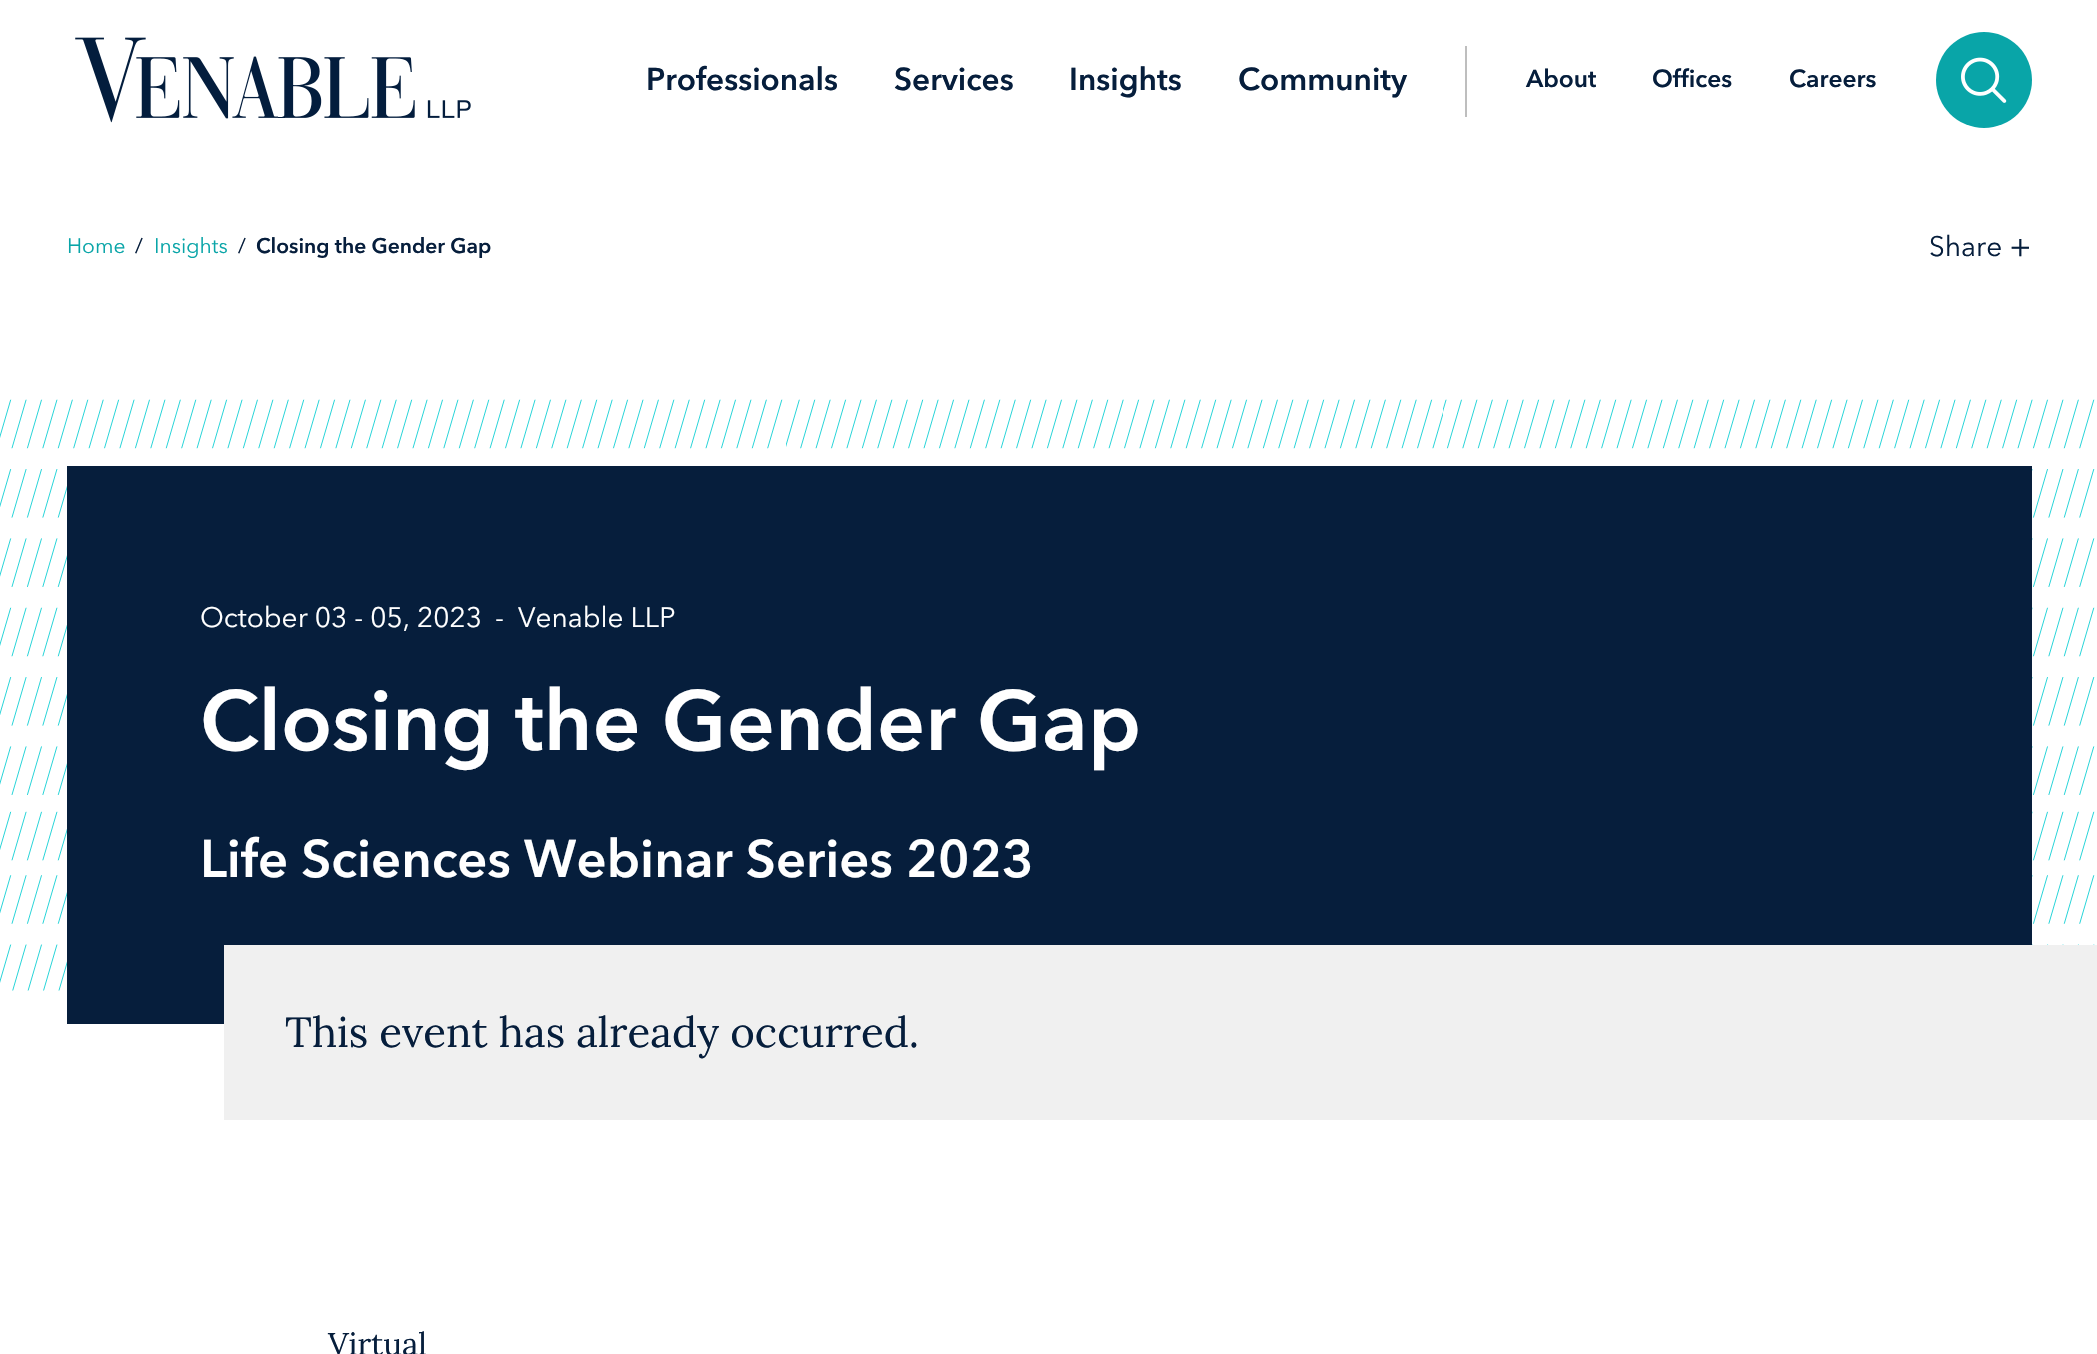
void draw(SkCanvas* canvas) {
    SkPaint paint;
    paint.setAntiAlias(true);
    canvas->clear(0xFFFFFFFF);
    canvas->drawImageRect(SkImages::DeferredFromEncodedData(SkData::MakeFromFileName("img1.png")), SkRect::MakeXYWH(75, 37, 396, 86), SkSamplingOptions());
    SkFont font1(fontMgr->matchFamilyStyle("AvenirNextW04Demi", SkFontStyle::Bold()), 31.5f);
    font1.setSubpixel(true);
    paint.setColor(0xFF061E3C);
    canvas->drawString("Professionals", 646, 90, font1, paint);
    canvas->drawString("Services", 894, 90, font1, paint);
    canvas->drawString("Insights", 1069, 90, font1, paint);
    canvas->drawString("Community", 1238, 90, font1, paint);
    paint.setColor(0xFFBEBEBE);
    canvas->drawRect(SkRect::MakeXYWH(1465, 46, 2, 71), paint);
    SkFont font2(fontMgr->matchFamilyStyle("AvenirNextW04Demi", SkFontStyle::Bold()), 24.5f);
    font2.setSubpixel(true);
    paint.setColor(0xFF061E3C);
    canvas->drawString("About", 1526, 87, font2, paint);
    canvas->drawString("Offices", 1652, 87, font2, paint);
    canvas->drawString("Careers", 1789, 87, font2, paint);
    paint.setColor(0xFF09A5A8);
    canvas->drawCircle(1984, 80, 48, paint);
    canvas->drawImageRect(SkImages::DeferredFromEncodedData(SkData::MakeFromFileName("img2.png")), SkRect::MakeXYWH(1961, 57, 46, 46), SkSamplingOptions());
    SkFont font3(fontMgr->matchFamilyStyle("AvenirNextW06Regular", SkFontStyle::Normal()), 21);
    font3.setSubpixel(true);
    canvas->drawString("Home", 67, 253, font3, paint);
    paint.setColor(0xFF061E3C);
    canvas->drawString("/", 135, 253, font3, paint);
    paint.setColor(0xFF09A5A8);
    canvas->drawString("Insights", 154, 253, font3, paint);
    paint.setColor(0xFF061E3C);
    canvas->drawString("/", 238, 253, font3, paint);
    SkFont font4(fontMgr->matchFamilyStyle("AvenirNextW04Demi", SkFontStyle::Bold()), 21);
    font4.setSubpixel(true);
    canvas->drawString("Closing the Gender Gap", 256, 253, font4, paint);
    SkFont font5(fontMgr->matchFamilyStyle("AvenirNextW06Regular", SkFontStyle::Normal()), 28);
    font5.setSubpixel(true);
    canvas->drawString("Share", 1929, 256, font5, paint);
    SkFont font6(fontMgr->matchFamilyStyle("AvenirNextW06Regular", SkFontStyle::Normal()), 34);
    font6.setSubpixel(true);
    canvas->drawString("+", 2009, 258, font6, paint);
    canvas->drawImageRect(SkImages::DeferredFromEncodedData(SkData::MakeFromFileName("img3.png")), SkRect::MakeXYWH(0, 399, 2095, 592), SkSamplingOptions());
    canvas->drawRect(SkRect::MakeXYWH(67, 466, 1965, 558), paint);
    paint.setColor(0xFFFFFFFF);
    canvas->drawString("October 03 - 05, 2023", 200, 627, font5, paint);
    canvas->drawString("-", 495, 627, font5, paint);
    canvas->drawString("Venable LLP", 518, 627, font5, paint);
    SkFont font7(fontMgr->matchFamilyStyle("AvenirNextW04Demi", SkFontStyle::Bold()), 84);
    font7.setSubpixel(true);
    canvas->drawString("Closing the Gender Gap", 200, 750, font7, paint);
    SkFont font8(fontMgr->matchFamilyStyle("AvenirNextW04Demi", SkFontStyle::Bold()), 52.5f);
    font8.setSubpixel(true);
    canvas->drawString("Life Sciences Webinar Series 2023", 200, 877, font8, paint);
    paint.setColor(0xFFF0F0F0);
    canvas->drawRect(SkRect::MakeXYWH(224, 945, 1873, 175), paint);
    SkFont font9(fontMgr->matchFamilyStyle("Lora", SkFontStyle::Normal()), 42);
    font9.setSubpixel(true);
    paint.setColor(0xFF061E3C);
    canvas->drawString("This event has already occurred.", 285, 1047, font9, paint);
    SkFont font10(fontMgr->matchFamilyStyle("Lora", SkFontStyle::Normal()), 31.5f);
    font10.setSubpixel(true);
    canvas->drawString("Virtual", 328, 1355, font10, paint);
}
